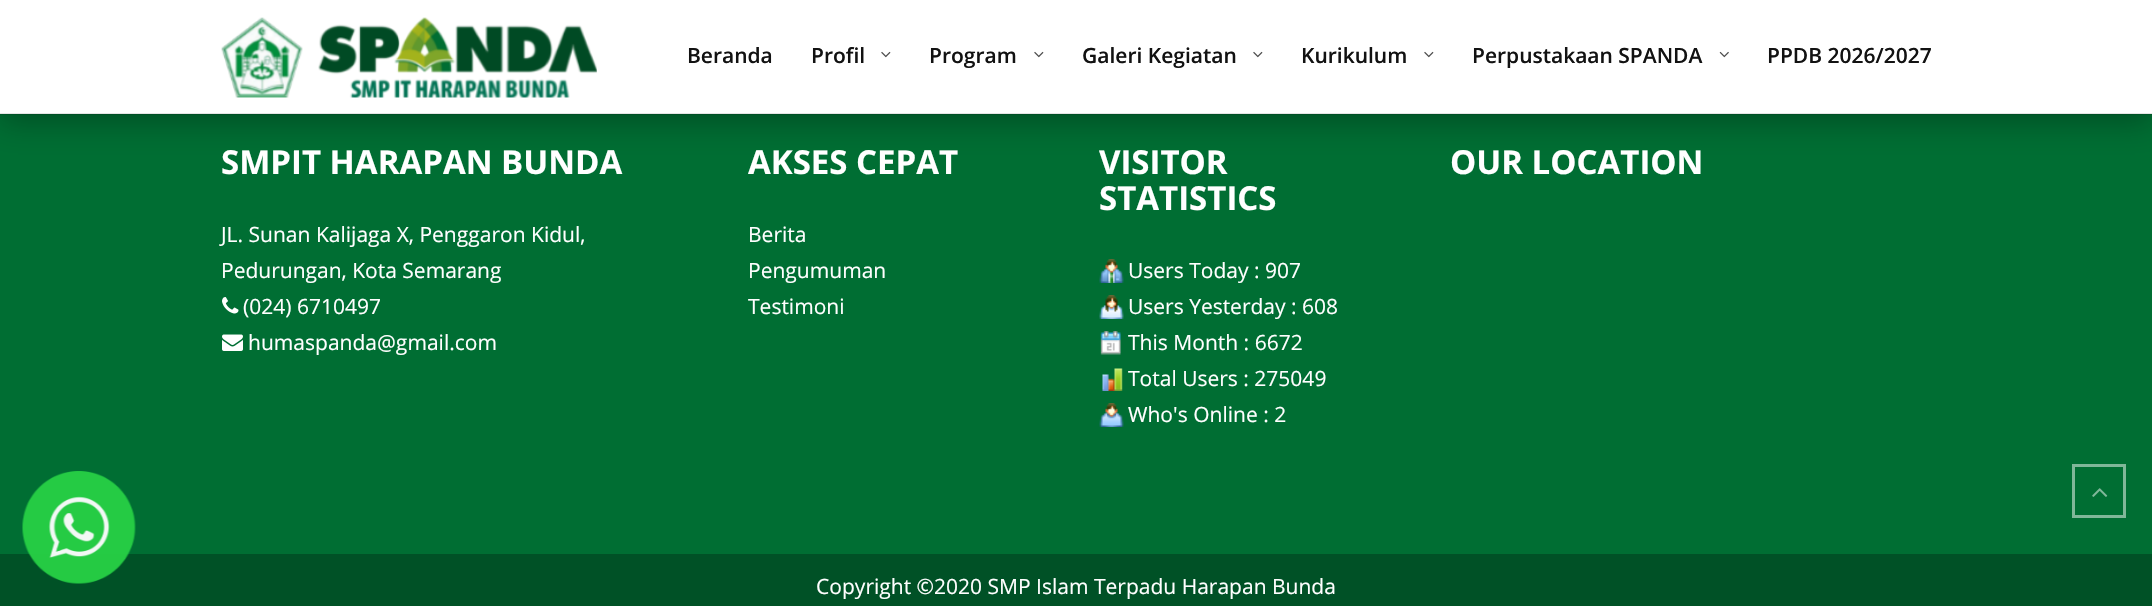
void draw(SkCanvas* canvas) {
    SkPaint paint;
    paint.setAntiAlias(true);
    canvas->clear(0xFF006E33);
    paint.setColor(0x4A000000);
    paint.setMaskFilter(SkMaskFilter::MakeBlur(kNormal_SkBlurStyle, 15));
    canvas->drawRect(SkRect::MakeXYWH(0, 8, 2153, 114), paint);
    paint.setMaskFilter(nullptr);
    paint.setColor(0xFFFFFFFF);
    canvas->drawRect(SkRect::MakeXYWH(0, 0, 2152, 114), paint);
    paint.setColor(0x1A000000);
    canvas->drawRect(SkRect::MakeXYWH(0, 113, 2152, 2), paint);
    canvas->drawImageRect(SkImages::DeferredFromEncodedData(SkData::MakeFromFileName("img1.png")), SkRect::MakeXYWH(221, 17, 376, 81), SkSamplingOptions());
    SkFont font1(fontMgr->matchFamilyStyle("Open Sans", SkFontStyle(600, SkFontStyle::kNormal_Width, SkFontStyle::kUpright_Slant)), 21);
    font1.setSubpixel(true);
    paint.setColor(0xFF121212);
    canvas->drawString("Beranda", 687, 63, font1, paint);
    canvas->drawString("Profil", 811, 63, font1, paint);
    canvas->drawImageRect(SkImages::DeferredFromEncodedData(SkData::MakeFromFileName("img2.png")), SkRect::MakeXYWH(881, 51, 10, 7), SkSamplingOptions());
    canvas->drawString("Program", 929, 63, font1, paint);
    canvas->drawImageRect(SkImages::DeferredFromEncodedData(SkData::MakeFromFileName("img2.png")), SkRect::MakeXYWH(1034, 51, 10, 7), SkSamplingOptions());
    canvas->drawString("Galeri Kegiatan", 1082, 63, font1, paint);
    canvas->drawImageRect(SkImages::DeferredFromEncodedData(SkData::MakeFromFileName("img2.png")), SkRect::MakeXYWH(1253, 51, 10, 7), SkSamplingOptions());
    canvas->drawString("Kurikulum", 1301, 63, font1, paint);
    canvas->drawImageRect(SkImages::DeferredFromEncodedData(SkData::MakeFromFileName("img2.png")), SkRect::MakeXYWH(1424, 51, 10, 7), SkSamplingOptions());
    canvas->drawString("Perpustakaan SPANDA", 1472, 63, font1, paint);
    canvas->drawImageRect(SkImages::DeferredFromEncodedData(SkData::MakeFromFileName("img3.png")), SkRect::MakeXYWH(1719, 51, 10, 7), SkSamplingOptions());
    canvas->drawString("PPDB 2026/2027", 1767, 63, font1, paint);
    SkFont font2(fontMgr->matchFamilyStyle("Open Sans", SkFontStyle::Bold()), 33);
    font2.setSubpixel(true);
    paint.setColor(0xFFFFFFFF);
    canvas->drawString("SMPIT HARAPAN BUNDA", 221, 174, font2, paint);
    SkFont font3(fontMgr->matchFamilyStyle("Open Sans", SkFontStyle::Normal()), 21);
    font3.setSubpixel(true);
    canvas->drawString("JL. Sunan Kalijaga X, Penggaron Kidul,", 221, 242, font3, paint);
    canvas->drawString("Pedurungan, Kota Semarang", 221, 278, font3, paint);
    canvas->drawImageRect(SkImages::DeferredFromEncodedData(SkData::MakeFromFileName("img4.png")), SkRect::MakeXYWH(222, 297, 17, 17), SkSamplingOptions());
    canvas->drawString("(024) 6710497", 243, 314, font3, paint);
    canvas->drawImageRect(SkImages::DeferredFromEncodedData(SkData::MakeFromFileName("img5.png")), SkRect::MakeXYWH(222, 334, 21, 17), SkSamplingOptions());
    canvas->drawString("humaspanda@gmail.com", 248, 350, font3, paint);
    canvas->drawString("AKSES CEPAT", 748, 174, font2, paint);
    canvas->drawString("Berita", 748, 242, font3, paint);
    canvas->drawString("Pengumuman", 748, 278, font3, paint);
    canvas->drawString("Testimoni", 748, 314, font3, paint);
    canvas->drawString("VISITOR", 1099, 174, font2, paint);
    canvas->drawString("STATISTICS", 1099, 210, font2, paint);
    canvas->drawImageRect(SkImages::DeferredFromEncodedData(SkData::MakeFromFileName("img6.png")), SkRect::MakeXYWH(1099, 259, 25, 24), SkSamplingOptions());
    canvas->drawString("Users Today : 907", 1128, 278, font3, paint);
    canvas->drawImageRect(SkImages::DeferredFromEncodedData(SkData::MakeFromFileName("img7.png")), SkRect::MakeXYWH(1099, 295, 25, 24), SkSamplingOptions());
    canvas->drawString("Users Yesterday : 608", 1128, 314, font3, paint);
    canvas->drawImageRect(SkImages::DeferredFromEncodedData(SkData::MakeFromFileName("img8.png")), SkRect::MakeXYWH(1100, 331, 21, 24), SkSamplingOptions());
    canvas->drawString("This Month : 6672", 1128, 350, font3, paint);
    canvas->drawImageRect(SkImages::DeferredFromEncodedData(SkData::MakeFromFileName("img9.png")), SkRect::MakeXYWH(1102, 368, 21, 23), SkSamplingOptions());
    canvas->drawString("Total Users : 275049", 1128, 386, font3, paint);
    canvas->drawImageRect(SkImages::DeferredFromEncodedData(SkData::MakeFromFileName("img10.png")), SkRect::MakeXYWH(1099, 403, 25, 24), SkSamplingOptions());
    canvas->drawString("Who's Online : 2", 1128, 422, font3, paint);
    canvas->drawString("OUR LOCATION", 1450, 174, font2, paint);
    paint.setStyle(SkPaint::kStroke_Style);
    paint.setStrokeWidth(3);
    paint.setColor(0xFF80B799);
    canvas->drawRect(SkRect::MakeXYWH(2073.5f, 465.5f, 51, 51), paint);
    canvas->drawImageRect(SkImages::DeferredFromEncodedData(SkData::MakeFromFileName("img11.png")), SkRect::MakeXYWH(2092, 488, 16, 9), SkSamplingOptions());
    paint.setStyle(SkPaint::kFill_Style);
    paint.setColor(0xFF005126);
    canvas->drawRect(SkRect::MakeXYWH(0, 554, 2152, 52), paint);
    canvas->drawImageRect(SkImages::DeferredFromEncodedData(SkData::MakeFromFileName("img12.png")), SkRect::MakeXYWH(22, 471, 114, 113), SkSamplingOptions());
    paint.setColor(0xFFFFFFFF);
    canvas->drawString("Copyright ©2020 SMP Islam Terpadu Harapan Bunda", 816, 594, font3, paint);
}
